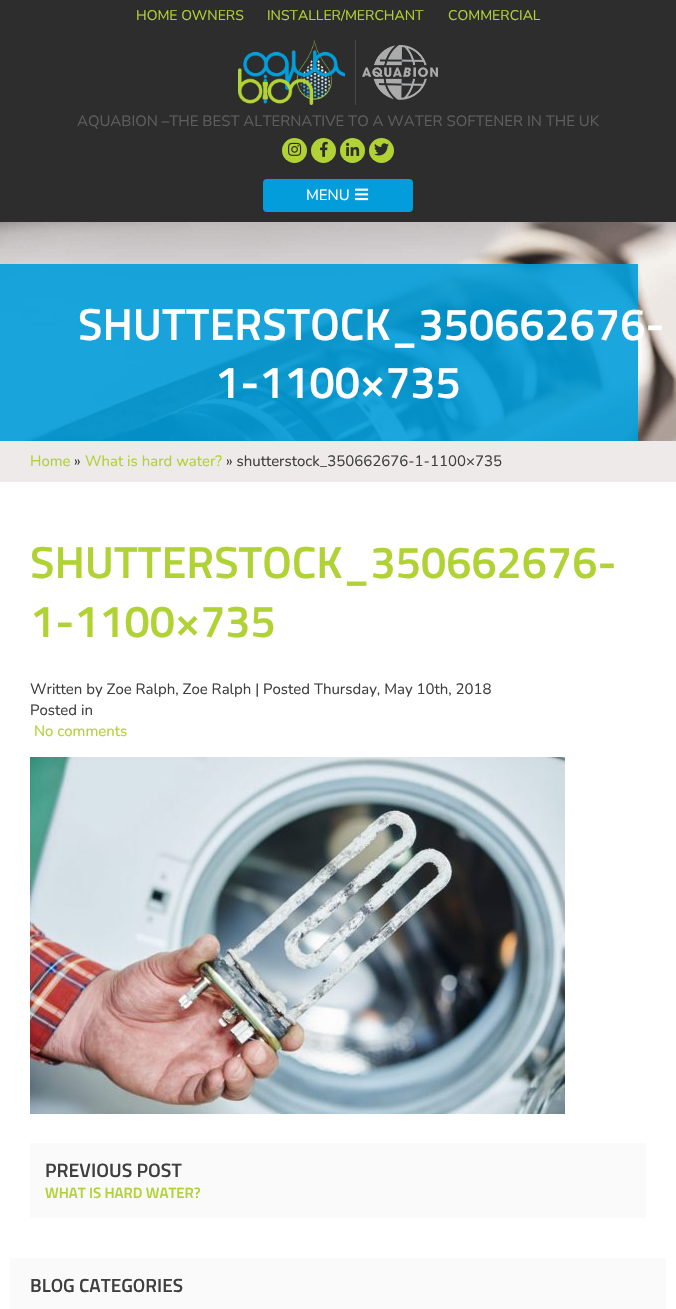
void draw(SkCanvas* canvas) {
    SkPaint paint;
    paint.setAntiAlias(true);
    canvas->clear(0xFFFFFFFF);
    paint.setColor(0xFF2E2D2D);
    canvas->drawRect(SkRect::MakeXYWH(0, 0, 676, 222), paint);
    SkFont font1(fontMgr->matchFamilyStyle("Nunito", SkFontStyle::Normal()), 14);
    font1.setSubpixel(true);
    paint.setColor(0xFFB1D235);
    canvas->drawString("HOME OWNERS", 136, 20, font1, paint);
    canvas->drawString("INSTALLER/MERCHANT", 267, 20, font1, paint);
    canvas->drawString("COMMERCIAL", 448, 20, font1, paint);
    canvas->drawImageRect(SkImages::DeferredFromEncodedData(SkData::MakeFromFileName("img1.png")), SkRect::MakeXYWH(238, 40, 107, 65), SkSamplingOptions());
    paint.setColor(0xFF4A4949);
    canvas->drawRect(SkRect::MakeXYWH(355, 40, 1, 65), paint);
    canvas->drawImageRect(SkImages::DeferredFromEncodedData(SkData::MakeFromFileName("img2.png")), SkRect::MakeXYWH(362, 45, 76, 55), SkSamplingOptions());
    SkFont font2(fontMgr->matchFamilyStyle("Nunito", SkFontStyle::Normal()), 15);
    font2.setSubpixel(true);
    paint.setColor(0xFF5E5E5E);
    canvas->drawString("AQUABION –THE BEST ALTERNATIVE TO A WATER SOFTENER IN THE UK", 77, 126, font2, paint);
    paint.setColor(0xFFB1D235);
    canvas->drawCircle(294.5f, 150.5f, 12.5f, paint);
    canvas->drawImageRect(SkImages::DeferredFromEncodedData(SkData::MakeFromFileName("img3.png")), SkRect::MakeXYWH(288, 142, 14, 14), SkSamplingOptions());
    canvas->drawCircle(323.5f, 150.5f, 12.5f, paint);
    canvas->drawImageRect(SkImages::DeferredFromEncodedData(SkData::MakeFromFileName("img4.png")), SkRect::MakeXYWH(320, 141, 8, 16), SkSamplingOptions());
    canvas->drawCircle(352.5f, 150.5f, 12.5f, paint);
    canvas->drawImageRect(SkImages::DeferredFromEncodedData(SkData::MakeFromFileName("img5.png")), SkRect::MakeXYWH(346, 142, 14, 14), SkSamplingOptions());
    canvas->drawCircle(381.5f, 150.5f, 12.5f, paint);
    canvas->drawImageRect(SkImages::DeferredFromEncodedData(SkData::MakeFromFileName("img6.png")), SkRect::MakeXYWH(374, 143, 15, 13), SkSamplingOptions());
    paint.setColor(0xFF029DDA);
    canvas->drawRoundRect(SkRect::MakeXYWH(263, 179, 150, 33), 4, 4, paint);
    paint.setColor(0xFFFFFFFF);
    canvas->drawString("MENU", 306, 200, font2, paint);
    canvas->drawImageRect(SkImages::DeferredFromEncodedData(SkData::MakeFromFileName("img7.png")), SkRect::MakeXYWH(355, 188, 14, 13), SkSamplingOptions());
    canvas->drawImageRect(SkImages::DeferredFromEncodedData(SkData::MakeFromFileName("img8.png")), SkRect::MakeXYWH(0, 222, 676, 219), SkSamplingOptions());
    paint.setColor(0xE6029DDA);
    canvas->drawRect(SkRect::MakeXYWH(38, 264, 600, 177), paint);
    canvas->drawRect(SkRect::MakeXYWH(0, 264, 38, 177), paint);
    SkFont font3(fontMgr->matchFamilyStyle("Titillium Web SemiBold", SkFontStyle(600, SkFontStyle::kNormal_Width, SkFontStyle::kUpright_Slant)), 45);
    font3.setSubpixel(true);
    paint.setColor(0xFFFFFFFF);
    canvas->drawString("SHUTTERSTOCK_350662676-", 78, 340, font3, paint);
    canvas->drawString("1-1100×735", 215, 398, font3, paint);
    paint.setColor(0xFFEEEAEA);
    canvas->drawRect(SkRect::MakeXYWH(0, 441, 676, 41), paint);
    paint.setColor(0xFFB1D235);
    canvas->drawString("Home", 30, 466, font2, paint);
    paint.setColor(0xFF3F3F3F);
    canvas->drawString("»", 74, 466, font2, paint);
    paint.setColor(0xFFB1D235);
    canvas->drawString("What is hard water?", 85, 466, font2, paint);
    paint.setColor(0xFF3F3F3F);
    canvas->drawString("» shutterstock_350662676-1-1100×735", 226, 466, font2, paint);
    paint.setColor(0xFFB1D235);
    canvas->drawString("SHUTTERSTOCK_350662676-", 30, 578, font3, paint);
    canvas->drawString("1-1100×735", 30, 637, font3, paint);
    paint.setColor(0xFF3F3F3F);
    canvas->drawString("Written by Zoe Ralph, Zoe Ralph | Posted Thursday, May 10th, 2018", 30, 694, font2, paint);
    canvas->drawString("Posted in", 30, 715, font2, paint);
    paint.setColor(0xFFB1D235);
    canvas->drawString("No comments", 34, 736, font2, paint);
    canvas->drawImageRect(SkImages::DeferredFromEncodedData(SkData::MakeFromFileName("img9.png")), SkRect::MakeXYWH(30, 757, 535, 357), SkSamplingOptions());
    paint.setColor(0xFFFAFAFA);
    canvas->drawRect(SkRect::MakeXYWH(30, 1143, 616, 75), paint);
    SkFont font4(fontMgr->matchFamilyStyle("Titillium Web SemiBold", SkFontStyle(600, SkFontStyle::kNormal_Width, SkFontStyle::kUpright_Slant)), 19.5f);
    font4.setSubpixel(true);
    paint.setColor(0xFF3F3F3F);
    canvas->drawString("PREVIOUS POST", 45, 1177, font4, paint);
    SkFont font5(fontMgr->matchFamilyStyle("Titillium Web SemiBold", SkFontStyle(600, SkFontStyle::kNormal_Width, SkFontStyle::kUpright_Slant)), 15);
    font5.setSubpixel(true);
    paint.setColor(0xFFB1D235);
    canvas->drawString("WHAT IS HARD WATER?", 45, 1198, font5, paint);
    paint.setColor(0xFFFAFAFA);
    canvas->drawRect(SkRect::MakeXYWH(10, 1258, 656, 51), paint);
    SkFont font6(fontMgr->matchFamilyStyle("Titillium Web SemiBold", SkFontStyle(600, SkFontStyle::kNormal_Width, SkFontStyle::kUpright_Slant)), 19);
    font6.setSubpixel(true);
    paint.setColor(0xFF3F3F3F);
    canvas->drawString("BLOG CATEGORIES", 30, 1292, font6, paint);
}
